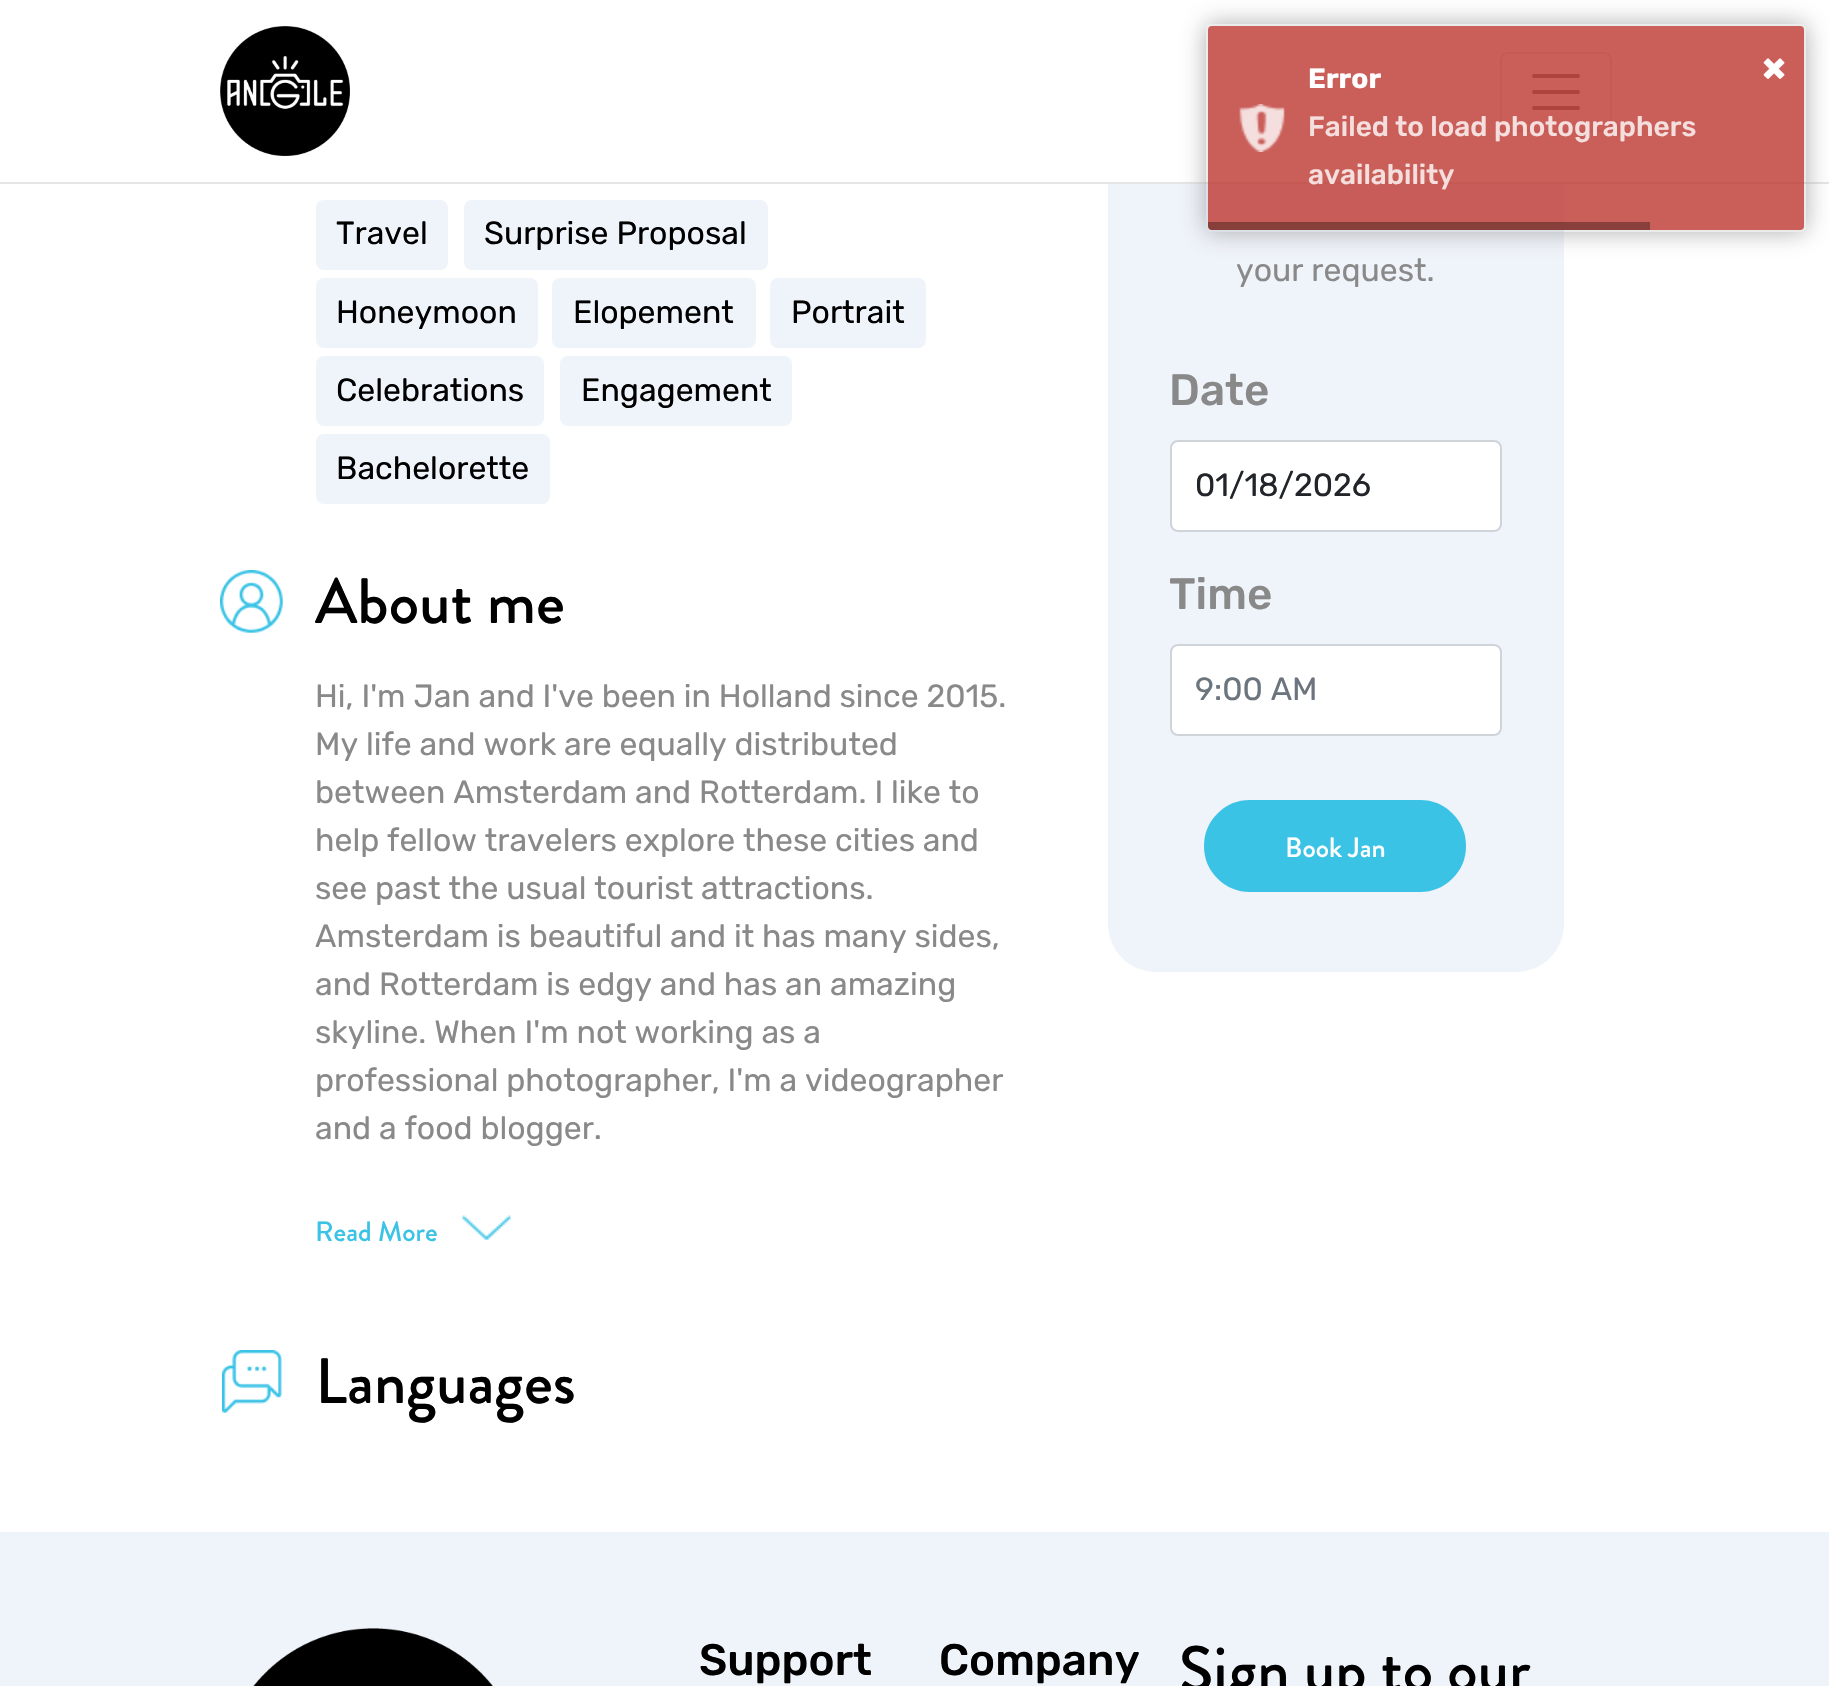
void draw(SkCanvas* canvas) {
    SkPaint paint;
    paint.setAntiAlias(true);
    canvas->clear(0xFFFFFFFF);
    paint.setColor(0xFFEFF3FA);
    canvas->drawRoundRect(SkRect::MakeXYWH(1108, -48, 456, 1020), 48, 48, paint);
    paint.setColor(0xFFFFFFFF);
    canvas->drawRect(SkRect::MakeXYWH(1108, 0, 456, 182), paint);
    paint.setColor(0xFFE5E5E5);
    canvas->drawRect(SkRect::MakeXYWH(0, 182, 1829, 2), paint);
    canvas->drawImageRect(SkImages::DeferredFromEncodedData(SkData::MakeFromFileName("img1.png")), SkRect::MakeXYWH(220, 26, 130, 130), SkSamplingOptions());
    paint.setStyle(SkPaint::kStroke_Style);
    paint.setStrokeWidth(2);
    paint.setColor(0xFFE6E6E6);
    canvas->drawRoundRect(SkRect::MakeXYWH(1501, 53, 110, 78), 7, 7, paint);
    paint.setStrokeWidth(4);
    paint.setStrokeCap(SkPaint::kRound_Cap);
    paint.setColor(0xFF737373);
    canvas->drawPath(SkPathBuilder().moveTo(1534, 76).lineTo(1578, 76).moveTo(1534, 92).lineTo(1578, 92).moveTo(1534, 108).lineTo(1578, 108).detach(), paint);
    canvas->save();
    canvas->clipPath(SkPathBuilder(SkPathFillType::kEvenOdd).moveTo(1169, 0).lineTo(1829, 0).lineTo(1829, 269).lineTo(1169, 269).close().moveTo(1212, 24).lineTo(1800, 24).cubicTo(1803.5f, 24, 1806, 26.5f, 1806, 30).lineTo(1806, 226).cubicTo(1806, 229.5f, 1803.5f, 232, 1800, 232).lineTo(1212, 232).cubicTo(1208.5f, 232, 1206, 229.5f, 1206, 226).lineTo(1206, 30).cubicTo(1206, 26.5f, 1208.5f, 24, 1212, 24).close().detach(), true);
    paint.setStyle(SkPaint::kFill_Style);
    paint.setColor(0xCC999999);
    paint.setMaskFilter(SkMaskFilter::MakeBlur(kNormal_SkBlurStyle, 12));
    canvas->drawRoundRect(SkRect::MakeXYWH(1206, 24, 600, 208), 6, 6, paint);
    paint.setMaskFilter(nullptr);
    canvas->restore();
    paint.setColor(0xCCBD362F);
    canvas->drawRoundRect(SkRect::MakeXYWH(1208, 26, 596, 204), 4, 4, paint);
    canvas->drawImageRect(SkImages::DeferredFromEncodedData(SkData::MakeFromFileName("img2.png")), SkRect::MakeXYWH(1239, 104, 46, 48), SkSamplingOptions());
    paint.setStyle(SkPaint::kStroke_Style);
    paint.setStrokeWidth(2);
    paint.setStrokeCap(SkPaint::kButt_Cap);
    paint.setColor(0x14000000);
    canvas->drawRoundRect(SkRect::MakeXYWH(1207, 25, 598, 206), 5, 5, paint);
    SkFont font1(fontMgr->matchFamilyStyle("Rubik", SkFontStyle::Bold()), 28);
    font1.setSubpixel(true);
    paint.setStyle(SkPaint::kFill_Style);
    paint.setColor(0xFFFFFFFF);
    canvas->drawString("Error", 1308, 88, font1, paint);
    SkFont font2(fontMgr->matchFamilyStyle("Rubik", SkFontStyle::Bold()), 40);
    font2.setSubpixel(true);
    canvas->drawString("×", 1762, 82, font2, paint);
    SkFont font3(fontMgr->matchFamilyStyle("Rubik", SkFontStyle(500, SkFontStyle::kNormal_Width, SkFontStyle::kUpright_Slant)), 28);
    font3.setSubpixel(true);
    paint.setColor(0xFFF4DFDE);
    canvas->drawString("Failed to load photographers", 1308, 136, font3, paint);
    canvas->drawString("availability", 1308, 184, font3, paint);
    paint.setColor(0x52000000);
    canvas->drawPath(SkPathBuilder().moveTo(1208, 222).lineTo(1650, 222).lineTo(1650, 230).lineTo(1212, 230).cubicTo(1210, 230, 1208, 228, 1208, 226).close().detach(), paint);
    paint.setColor(0xFFEFF3FA);
    canvas->drawRoundRect(SkRect::MakeXYWH(316, 200, 132, 70), 8, 8, paint);
    SkFont font4(fontMgr->matchFamilyStyle("Rubik", SkFontStyle::Normal()), 32);
    font4.setSubpixel(true);
    paint.setColor(0xFF000000);
    canvas->drawString("Travel", 336, 244, font4, paint);
    paint.setColor(0xFFEFF3FA);
    canvas->drawRoundRect(SkRect::MakeXYWH(464, 200, 304, 70), 8, 8, paint);
    paint.setColor(0xFF000000);
    canvas->drawString("Surprise Proposal", 484, 244, font4, paint);
    paint.setColor(0xFFEFF3FA);
    canvas->drawRoundRect(SkRect::MakeXYWH(316, 278, 222, 70), 8, 8, paint);
    paint.setColor(0xFF000000);
    canvas->drawString("Honeymoon", 336, 323, font4, paint);
    paint.setColor(0xFFEFF3FA);
    canvas->drawRoundRect(SkRect::MakeXYWH(552, 278, 204, 70), 8, 8, paint);
    paint.setColor(0xFF000000);
    canvas->drawString("Elopement", 573, 323, font4, paint);
    paint.setColor(0xFFEFF3FA);
    canvas->drawRoundRect(SkRect::MakeXYWH(770, 278, 156, 70), 8, 8, paint);
    paint.setColor(0xFF000000);
    canvas->drawString("Portrait", 791, 323, font4, paint);
    paint.setColor(0xFFEFF3FA);
    canvas->drawRoundRect(SkRect::MakeXYWH(316, 356, 228, 70), 8, 8, paint);
    paint.setColor(0xFF000000);
    canvas->drawString("Celebrations", 336, 401, font4, paint);
    paint.setColor(0xFFEFF3FA);
    canvas->drawRoundRect(SkRect::MakeXYWH(560, 356, 232, 70), 8, 8, paint);
    paint.setColor(0xFF000000);
    canvas->drawString("Engagement", 581, 401, font4, paint);
    paint.setColor(0xFFEFF3FA);
    canvas->drawRoundRect(SkRect::MakeXYWH(316, 434, 234, 70), 8, 8, paint);
    paint.setColor(0xFF000000);
    canvas->drawString("Bachelorette", 336, 479, font4, paint);
    canvas->drawImageRect(SkImages::DeferredFromEncodedData(SkData::MakeFromFileName("img3.png")), SkRect::MakeXYWH(220, 570, 63, 63), SkSamplingOptions());
    SkFont font5(fontMgr->matchFamilyStyle("Brandon Grotesque", SkFontStyle(500, SkFontStyle::kNormal_Width, SkFontStyle::kUpright_Slant)), 64);
    font5.setSubpixel(true);
    canvas->drawString("About me", 315, 623, font5, paint);
    paint.setColor(0xFF898989);
    canvas->drawString("Hi, I'm Jan and I've been in Holland since 2015.", 315, 707, font4, paint);
    canvas->drawString("My life and work are equally distributed", 315, 755, font4, paint);
    canvas->drawString("between Amsterdam and Rotterdam. I like to", 315, 803, font4, paint);
    canvas->drawString("help fellow travelers explore these cities and", 315, 851, font4, paint);
    canvas->drawString("see past the usual tourist attractions.", 315, 899, font4, paint);
    canvas->drawString("Amsterdam is beautiful and it has many sides,", 315, 947, font4, paint);
    canvas->drawString("and Rotterdam is edgy and has an amazing", 315, 995, font4, paint);
    canvas->drawString("skyline. When I'm not working as a", 315, 1043, font4, paint);
    canvas->drawString("professional photographer, I'm a videographer", 315, 1091, font4, paint);
    canvas->drawString("and a food blogger.", 315, 1139, font4, paint);
    SkFont font6(fontMgr->matchFamilyStyle("Brandon Grotesque", SkFontStyle(500, SkFontStyle::kNormal_Width, SkFontStyle::kUpright_Slant)), 28);
    font6.setSubpixel(true);
    paint.setColor(0xFF3BC3E6);
    canvas->drawString("Read More", 315, 1241, font6, paint);
    canvas->drawImageRect(SkImages::DeferredFromEncodedData(SkData::MakeFromFileName("img4.png")), SkRect::MakeXYWH(462, 1215, 49, 25), SkSamplingOptions());
    canvas->drawImageRect(SkImages::DeferredFromEncodedData(SkData::MakeFromFileName("img5.png")), SkRect::MakeXYWH(222, 1350, 60, 63), SkSamplingOptions());
    paint.setColor(0xFF000000);
    canvas->drawString("Languages", 315, 1403, font5, paint);
    paint.setColor(0xFF898989);
    canvas->drawString("your request.", 1236, 281, font4, paint);
    SkFont font7(fontMgr->matchFamilyStyle("Rubik", SkFontStyle(500, SkFontStyle::kNormal_Width, SkFontStyle::kUpright_Slant)), 44);
    font7.setSubpixel(true);
    canvas->drawString("Date", 1169, 405, font7, paint);
    paint.setColor(0xFFFFFFFF);
    canvas->drawRoundRect(SkRect::MakeXYWH(1171, 441, 330, 90), 7, 7, paint);
    paint.setStyle(SkPaint::kStroke_Style);
    paint.setColor(0xFFCED4DA);
    canvas->drawRoundRect(SkRect::MakeXYWH(1171, 441, 330, 90), 7, 7, paint);
    paint.setStyle(SkPaint::kFill_Style);
    paint.setColor(0xFF212529);
    canvas->drawString("01/18/2026", 1195, 496, font4, paint);
    paint.setColor(0xFF898989);
    canvas->drawString("Time", 1169, 609, font7, paint);
    paint.setColor(0xFFFFFFFF);
    canvas->drawRoundRect(SkRect::MakeXYWH(1171, 645, 330, 90), 7, 7, paint);
    paint.setStyle(SkPaint::kStroke_Style);
    paint.setColor(0xFFCED4DA);
    canvas->drawRoundRect(SkRect::MakeXYWH(1171, 645, 330, 90), 7, 7, paint);
    paint.setStyle(SkPaint::kFill_Style);
    paint.setColor(0xFF6C757D);
    canvas->drawString("9:00 AM", 1195, 700, font4, paint);
    paint.setColor(0xFF3BC3E6);
    canvas->drawRoundRect(SkRect::MakeXYWH(1205, 801, 260, 90), 45, 45, paint);
    paint.setStyle(SkPaint::kStroke_Style);
    canvas->drawRoundRect(SkRect::MakeXYWH(1205, 801, 260, 90), 45, 45, paint);
    paint.setStyle(SkPaint::kFill_Style);
    paint.setColor(0xFFFFFFFF);
    canvas->drawString("Book Jan", 1285, 857, font6, paint);
    paint.setColor(0xFFEFF3FA);
    canvas->drawRect(SkRect::MakeXYWH(0, 1532, 1829, 154), paint);
    canvas->drawImageRect(SkImages::DeferredFromEncodedData(SkData::MakeFromFileName("img6.png")), SkRect::MakeXYWH(253, 1628, 240, 58), SkSamplingOptions());
    paint.setColor(0xFF000000);
    canvas->drawString("Support", 699, 1675, font7, paint);
    canvas->drawString("Company", 939, 1675, font7, paint);
    canvas->drawString("Sign up to our", 1179, 1691, font5, paint);
}
